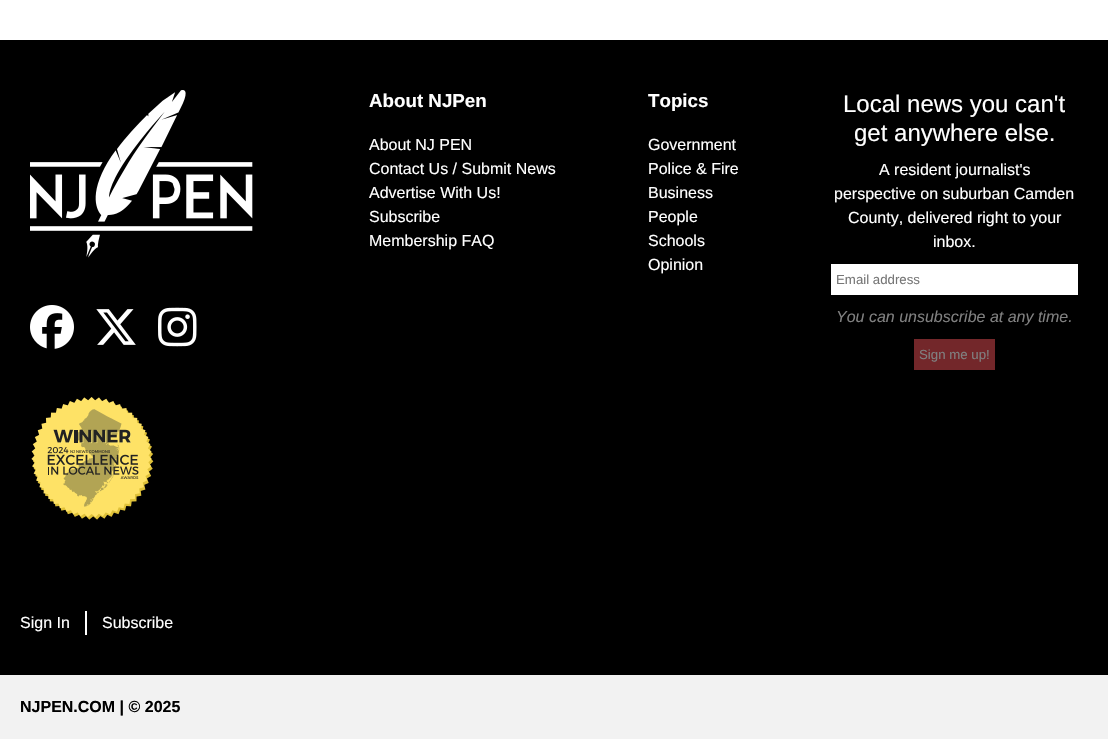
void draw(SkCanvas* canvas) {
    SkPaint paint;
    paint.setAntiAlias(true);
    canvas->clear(0xFFFFFFFF);
    paint.setColor(0xFF000000);
    canvas->drawRect(SkRect::MakeXYWH(0, 40, 1108, 635), paint);
    canvas->drawImageRect(SkImages::DeferredFromEncodedData(SkData::MakeFromFileName("img1.png")), SkRect::MakeXYWH(30, 90, 223, 168), SkSamplingOptions());
    canvas->drawImageRect(SkImages::DeferredFromEncodedData(SkData::MakeFromFileName("img2.png")), SkRect::MakeXYWH(30, 305, 44, 44), SkSamplingOptions());
    canvas->drawImageRect(SkImages::DeferredFromEncodedData(SkData::MakeFromFileName("img3.png")), SkRect::MakeXYWH(96, 309, 40, 36), SkSamplingOptions());
    canvas->drawImageRect(SkImages::DeferredFromEncodedData(SkData::MakeFromFileName("img4.png")), SkRect::MakeXYWH(158, 307, 39, 40), SkSamplingOptions());
    canvas->drawImageRect(SkImages::DeferredFromEncodedData(SkData::MakeFromFileName("img5.png")), SkRect::MakeXYWH(31, 397, 123, 123), SkSamplingOptions());
    SkFont font1(fontMgr->matchFamilyStyle("Liberation Sans", SkFontStyle::Bold()), 18.75f);
    font1.setSubpixel(true);
    paint.setColor(0xFFFFFFFF);
    canvas->drawString("About NJPen", 369, 107, font1, paint);
    SkFont font2(fontMgr->matchFamilyStyle("Liberation Sans", SkFontStyle::Normal()), 16);
    font2.setSubpixel(true);
    canvas->drawString("About NJ PEN", 369, 150, font2, paint);
    canvas->drawString("Contact Us / Submit News", 369, 174, font2, paint);
    canvas->drawString("Advertise With Us!", 369, 198, font2, paint);
    canvas->drawString("Subscribe", 369, 222, font2, paint);
    canvas->drawString("Membership FAQ", 369, 246, font2, paint);
    canvas->drawString("Topics", 648, 107, font1, paint);
    canvas->drawString("Government", 648, 150, font2, paint);
    canvas->drawString("Police & Fire", 648, 174, font2, paint);
    canvas->drawString("Business", 648, 198, font2, paint);
    canvas->drawString("People", 648, 222, font2, paint);
    canvas->drawString("Schools", 648, 246, font2, paint);
    canvas->drawString("Opinion", 648, 270, font2, paint);
    SkFont font3(fontMgr->matchFamilyStyle("Liberation Sans", SkFontStyle::Normal()), 24);
    font3.setSubpixel(true);
    canvas->drawString("Local news you can't", 843, 112, font3, paint);
    canvas->drawString("get anywhere else.", 854, 141, font3, paint);
    canvas->drawString("A resident journalist's", 879, 175, font2, paint);
    canvas->drawString("perspective on suburban Camden", 834, 199, font2, paint);
    canvas->drawString("County, delivered right to your", 848, 223, font2, paint);
    canvas->drawString("inbox.", 933, 247, font2, paint);
    canvas->drawRect(SkRect::MakeXYWH(831, 264, 247, 31), paint);
    SkFont font4(fontMgr->matchFamilyStyle("Liberation Sans", SkFontStyle::Normal()), 13.25f);
    font4.setSubpixel(true);
    paint.setColor(0xFF767676);
    canvas->drawString("Email address", 836, 284, font4, paint);
    SkFont font5(fontMgr->matchFamilyStyle("Liberation Sans", SkFontStyle::Italic()), 16);
    font5.setSubpixel(true);
    paint.setColor(0xFF808080);
    canvas->drawString("You can unsubscribe at any time.", 836, 322, font5, paint);
    paint.setColor(0xFF73272A);
    canvas->drawRect(SkRect::MakeXYWH(914, 339, 81, 31), paint);
    paint.setColor(0xFF808080);
    canvas->drawString("Sign me up!", 919, 359, font4, paint);
    paint.setColor(0xFFFFFFFF);
    canvas->drawRect(SkRect::MakeXYWH(85, 611, 2, 24), paint);
    canvas->drawString("Sign In", 20, 628, font2, paint);
    canvas->drawString("Subscribe", 102, 628, font2, paint);
    paint.setColor(0xFFF2F2F2);
    canvas->drawRect(SkRect::MakeXYWH(0, 675, 1108, 64), paint);
    SkFont font6(fontMgr->matchFamilyStyle("Liberation Sans", SkFontStyle::Bold()), 16);
    font6.setSubpixel(true);
    paint.setColor(0xFF000000);
    canvas->drawString("NJPEN.COM | © 2025", 20, 712, font6, paint);
}
